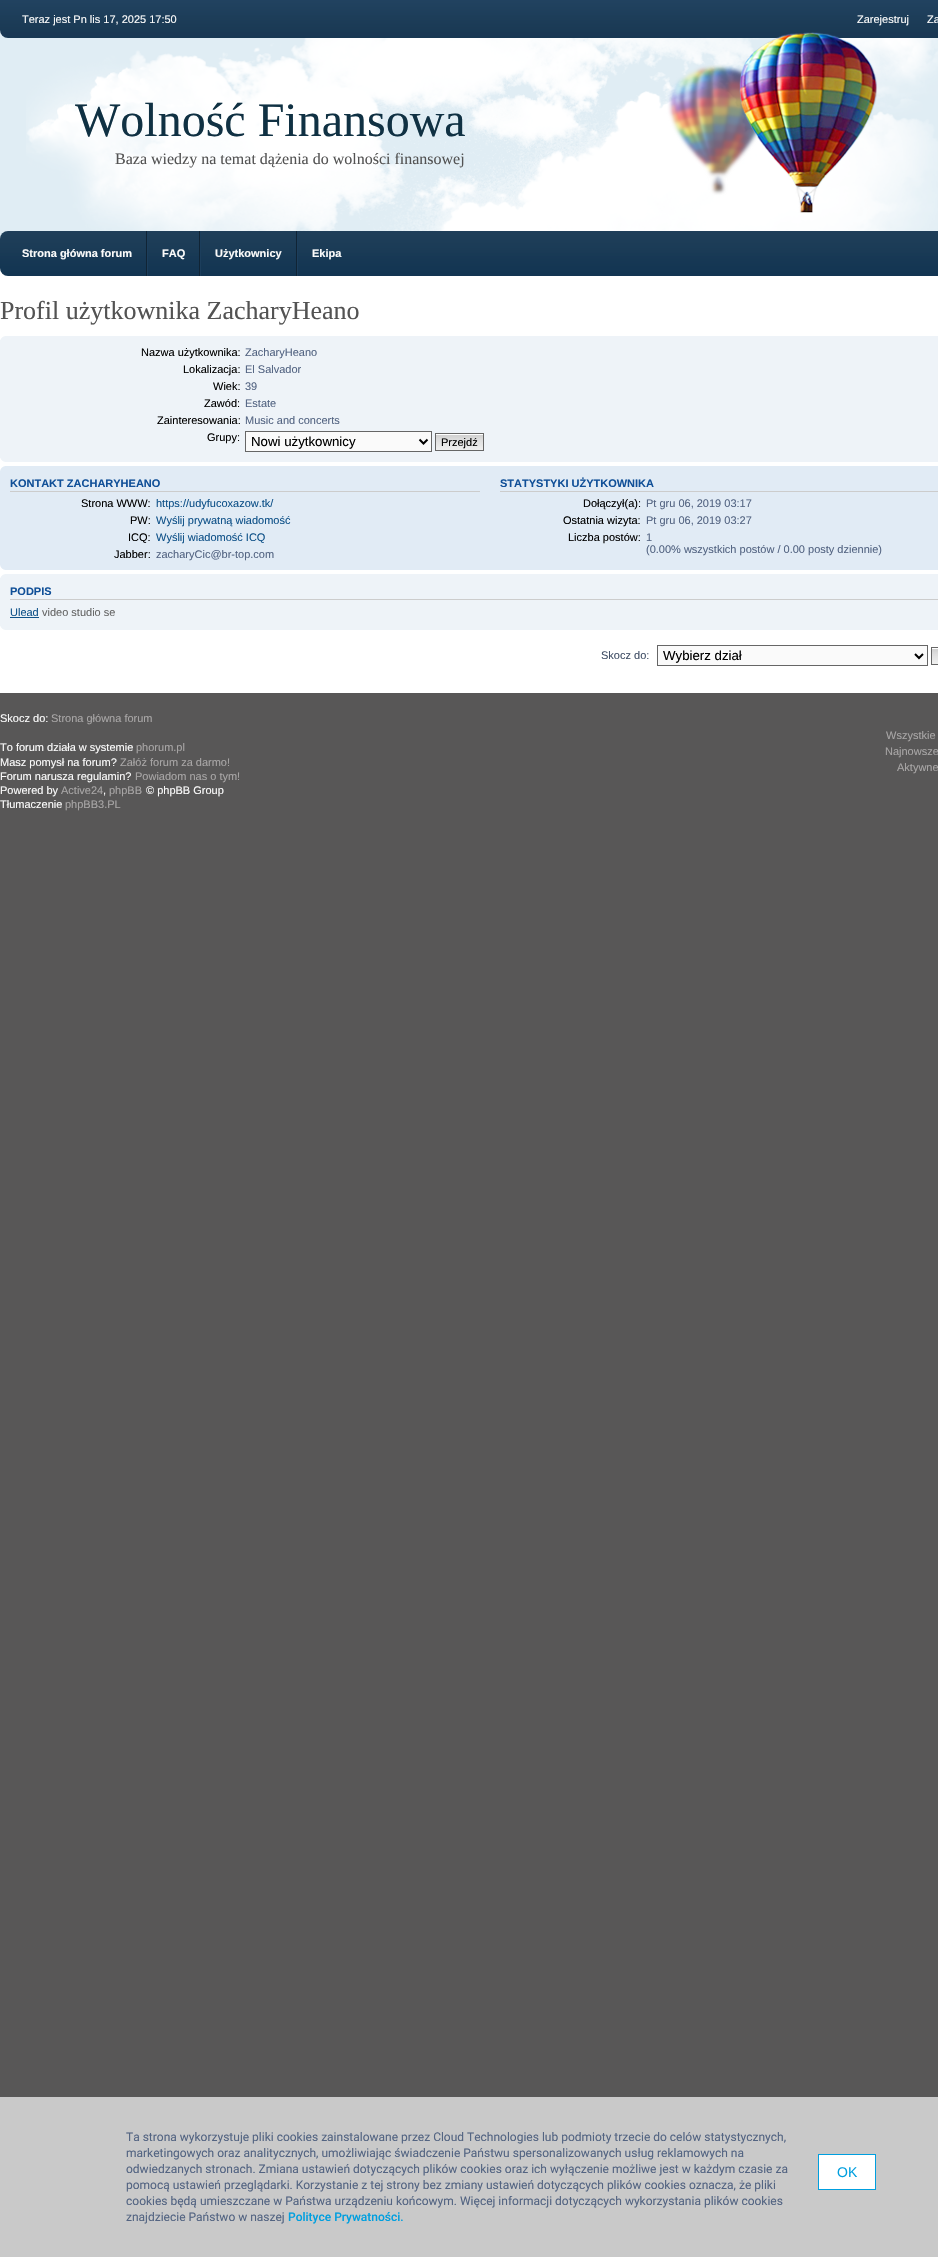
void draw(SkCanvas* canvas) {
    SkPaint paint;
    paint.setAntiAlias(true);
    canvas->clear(0xFFFFFFFF);
    paint.setColor(0xFFE0EDF4);
    canvas->drawRect(SkRect::MakeXYWH(0, 30, 26, 209), paint);
    canvas->drawImageRect(SkImages::DeferredFromEncodedData(SkData::MakeFromFileName("img1.png")), SkRect::MakeXYWH(0, 0, 938, 38), SkSamplingOptions());
    SkFont font1(fontMgr->matchFamilyStyle("Liberation Sans", SkFontStyle::Normal()), 11);
    font1.setSubpixel(true);
    paint.setColor(0xFFFBFBFB);
    canvas->drawString("Teraz jest Pn lis 17, 2025 17:50", 22, 23, font1, paint);
    canvas->drawString("Zarejestruj", 857, 23, font1, paint);
    canvas->drawString("Za", 927, 23, font1, paint);
    canvas->drawImageRect(SkImages::DeferredFromEncodedData(SkData::MakeFromFileName("img2.png")), SkRect::MakeXYWH(26, 32, 912, 199), SkSamplingOptions());
    SkFont font2(fontMgr->matchFamilyStyle("Liberation Serif", SkFontStyle::Normal()), 48);
    font2.setSubpixel(true);
    paint.setColor(0xFF103143);
    canvas->drawString("Wolność Finansowa", 75, 136, font2, paint);
    SkFont font3(fontMgr->matchFamilyStyle("Liberation Serif", SkFontStyle::Normal()), 16);
    font3.setSubpixel(true);
    paint.setColor(0xFF535353);
    canvas->drawString("Baza wiedzy na temat dążenia do wolności finansowej", 115, 164, font3, paint);
    canvas->drawImageRect(SkImages::DeferredFromEncodedData(SkData::MakeFromFileName("img3.png")), SkRect::MakeXYWH(0, 231, 938, 45), SkSamplingOptions());
    paint.setColor(0xFF102435);
    canvas->drawRect(SkRect::MakeXYWH(146, 231, 1, 45), paint);
    SkFont font4(fontMgr->matchFamilyStyle("Liberation Sans", SkFontStyle::Bold()), 11);
    font4.setSubpixel(true);
    paint.setColor(0xFFFBFBFB);
    canvas->drawString("Strona główna forum", 22, 257, font4, paint);
    paint.setColor(0xFF102435);
    canvas->drawRect(SkRect::MakeXYWH(199, 231, 1, 45), paint);
    paint.setColor(0xFF1C3E5C);
    canvas->drawRect(SkRect::MakeXYWH(147, 231, 1, 45), paint);
    paint.setColor(0xFFFBFBFB);
    canvas->drawString("FAQ", 162, 257, font4, paint);
    paint.setColor(0xFF102435);
    canvas->drawRect(SkRect::MakeXYWH(296, 231, 1, 45), paint);
    paint.setColor(0xFF1C3E5C);
    canvas->drawRect(SkRect::MakeXYWH(200, 231, 1, 45), paint);
    paint.setColor(0xFFFBFBFB);
    canvas->drawString("Użytkownicy", 215, 257, font4, paint);
    paint.setColor(0xFF1C3E5C);
    canvas->drawRect(SkRect::MakeXYWH(297, 231, 1, 45), paint);
    paint.setColor(0xFFFBFBFB);
    canvas->drawString("Ekipa", 312, 257, font4, paint);
    SkFont font5(fontMgr->matchFamilyStyle("Liberation Serif", SkFontStyle::Normal()), 26);
    font5.setSubpixel(true);
    paint.setColor(0xFF535353);
    canvas->drawString("Profil użytkownika ZacharyHeano", 0, 319, font5, paint);
    paint.setColor(0xFFEEF3F8);
    canvas->drawRect(SkRect::MakeXYWH(0, 336, 938, 126), paint);
    canvas->drawImageRect(SkImages::DeferredFromEncodedData(SkData::MakeFromFileName("img4.png")), SkRect::MakeXYWH(0, 336, 5, 4), SkSamplingOptions());
    paint.setColor(0xFF000000);
    canvas->drawString("Nazwa użytkownika:", 141, 356, font1, paint);
    paint.setColor(0xFF536482);
    canvas->drawString("ZacharyHeano", 245, 356, font1, paint);
    paint.setColor(0xFF000000);
    canvas->drawString("Lokalizacja:", 183, 373, font1, paint);
    paint.setColor(0xFF536482);
    canvas->drawString("El Salvador", 245, 373, font1, paint);
    paint.setColor(0xFF000000);
    canvas->drawString("Wiek:", 213, 390, font1, paint);
    paint.setColor(0xFF536482);
    canvas->drawString("39", 245, 390, font1, paint);
    paint.setColor(0xFF000000);
    canvas->drawString("Zawód:", 204, 407, font1, paint);
    paint.setColor(0xFF536482);
    canvas->drawString("Estate", 245, 407, font1, paint);
    paint.setColor(0xFF000000);
    canvas->drawString("Zainteresowania:", 157, 424, font1, paint);
    paint.setColor(0xFF536482);
    canvas->drawString("Music and concerts", 245, 424, font1, paint);
    paint.setColor(0xFF000000);
    canvas->drawString("Grupy:", 207, 441, font1, paint);
    paint.setColor(0xFFFAFAFA);
    canvas->drawRect(SkRect::MakeXYWH(245.5f, 431.5f, 186, 20), paint);
    paint.setStyle(SkPaint::kStroke_Style);
    paint.setStrokeWidth(1);
    paint.setColor(0xFF666666);
    canvas->drawRect(SkRect::MakeXYWH(245.5f, 431.5f, 186, 20), paint);
    paint.setStrokeWidth(2);
    paint.setColor(0xFF000000);
    canvas->drawPath(SkPathBuilder().moveTo(419.5f, 439.5f).lineTo(423.5f, 443.5f).lineTo(427.5f, 439.5f).detach(), paint);
    SkFont font6(fontMgr->matchFamilyStyle("Liberation Sans", SkFontStyle::Normal()), 13.25f);
    font6.setSubpixel(true);
    paint.setStyle(SkPaint::kFill_Style);
    canvas->drawString("Nowi użytkownicy", 251, 446, font6, paint);
    canvas->drawImageRect(SkImages::DeferredFromEncodedData(SkData::MakeFromFileName("img5.png")), SkRect::MakeXYWH(436, 434, 47, 16), SkSamplingOptions());
    paint.setStyle(SkPaint::kStroke_Style);
    paint.setStrokeWidth(1);
    paint.setColor(0xFF666666);
    canvas->drawRect(SkRect::MakeXYWH(435.5f, 433.5f, 48, 17), paint);
    paint.setStyle(SkPaint::kFill_Style);
    paint.setColor(0xFF000000);
    canvas->drawString("Przejdź", 441, 446, font1, paint);
    canvas->drawImageRect(SkImages::DeferredFromEncodedData(SkData::MakeFromFileName("img6.png")), SkRect::MakeXYWH(0, 458, 5, 4), SkSamplingOptions());
    paint.setColor(0xFFE1EBF5);
    canvas->drawRect(SkRect::MakeXYWH(0, 466, 938, 104), paint);
    canvas->drawImageRect(SkImages::DeferredFromEncodedData(SkData::MakeFromFileName("img7.png")), SkRect::MakeXYWH(0, 466, 5, 5), SkSamplingOptions());
    paint.setColor(0xFFCCCCCC);
    canvas->drawRect(SkRect::MakeXYWH(10, 491, 470, 1), paint);
    paint.setColor(0xFF115098);
    canvas->drawString("KONTAKT ZACHARYHEANO", 10, 487, font4, paint);
    paint.setColor(0xFF000000);
    canvas->drawString("Strona WWW:", 81, 507, font1, paint);
    paint.setColor(0xFF105289);
    canvas->drawString("https://udyfucoxazow.tk/", 156, 507, font1, paint);
    paint.setColor(0xFF000000);
    canvas->drawString("PW:", 130, 524, font1, paint);
    paint.setColor(0xFF105289);
    canvas->drawString("Wyślij prywatną wiadomość", 156, 524, font1, paint);
    paint.setColor(0xFF000000);
    canvas->drawString("ICQ:", 128, 541, font1, paint);
    paint.setColor(0xFF105289);
    canvas->drawString("Wyślij wiadomość ICQ", 156, 541, font1, paint);
    paint.setColor(0xFF000000);
    canvas->drawString("Jabber:", 114, 558, font1, paint);
    paint.setColor(0xFF536482);
    canvas->drawString("zacharyCic@br-top.com", 156, 558, font1, paint);
    paint.setColor(0xFFCCCCCC);
    canvas->drawRect(SkRect::MakeXYWH(500, 491, 438, 1), paint);
    paint.setColor(0xFF115098);
    canvas->drawString("STATYSTYKI UŻYTKOWNIKA", 500, 487, font4, paint);
    paint.setColor(0xFF000000);
    canvas->drawString("Dołączył(a):", 583, 507, font1, paint);
    paint.setColor(0xFF536482);
    canvas->drawString("Pt gru 06, 2019 03:17", 646, 507, font1, paint);
    paint.setColor(0xFF000000);
    canvas->drawString("Ostatnia wizyta:", 563, 524, font1, paint);
    paint.setColor(0xFF536482);
    canvas->drawString("Pt gru 06, 2019 03:27", 646, 524, font1, paint);
    paint.setColor(0xFF000000);
    canvas->drawString("Liczba postów:", 568, 541, font1, paint);
    paint.setColor(0xFF536482);
    canvas->drawString("1", 646, 541, font1, paint);
    canvas->drawString("(0.00% wszystkich postów / 0.00 posty dziennie)", 646, 553, font1, paint);
    canvas->drawImageRect(SkImages::DeferredFromEncodedData(SkData::MakeFromFileName("img8.png")), SkRect::MakeXYWH(0, 565, 5, 5), SkSamplingOptions());
    paint.setColor(0xFFEEF3F8);
    canvas->drawRect(SkRect::MakeXYWH(0, 574, 938, 56), paint);
    canvas->drawImageRect(SkImages::DeferredFromEncodedData(SkData::MakeFromFileName("img4.png")), SkRect::MakeXYWH(0, 574, 5, 4), SkSamplingOptions());
    paint.setColor(0xFFCCCCCC);
    canvas->drawRect(SkRect::MakeXYWH(10, 599, 928, 1), paint);
    paint.setColor(0xFF115098);
    canvas->drawString("PODPIS", 10, 595, font4, paint);
    paint.setColor(0xFF105289);
    canvas->drawString("Ulead", 10, 616, font1, paint);
    canvas->drawRect(SkRect::MakeXYWH(10, 617, 29, 1), paint);
    paint.setColor(0xFF666666);
    canvas->drawString("video studio se", 42, 616, font1, paint);
    canvas->drawImageRect(SkImages::DeferredFromEncodedData(SkData::MakeFromFileName("img6.png")), SkRect::MakeXYWH(0, 626, 5, 4), SkSamplingOptions());
    paint.setColor(0xFF425067);
    canvas->drawString("Skocz do:", 601, 659, font1, paint);
    paint.setColor(0xFFFAFAFA);
    canvas->drawRect(SkRect::MakeXYWH(657.5f, 645.5f, 270, 20), paint);
    paint.setStyle(SkPaint::kStroke_Style);
    paint.setColor(0xFF666666);
    canvas->drawRect(SkRect::MakeXYWH(657.5f, 645.5f, 270, 20), paint);
    paint.setStrokeWidth(2);
    paint.setColor(0xFF000000);
    canvas->drawPath(SkPathBuilder().moveTo(915, 654).lineTo(919, 658).lineTo(923, 654).detach(), paint);
    paint.setStyle(SkPaint::kFill_Style);
    canvas->drawString("Wybierz dział", 663, 660, font6, paint);
    canvas->drawImageRect(SkImages::DeferredFromEncodedData(SkData::MakeFromFileName("img9.png")), SkRect::MakeXYWH(932, 648, 6, 16), SkSamplingOptions());
    paint.setStyle(SkPaint::kStroke_Style);
    paint.setStrokeWidth(1);
    paint.setColor(0xFF666666);
    canvas->drawRect(SkRect::MakeXYWH(931.5f, 647.5f, 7, 17), paint);
    paint.setStyle(SkPaint::kFill_Style);
    paint.setColor(0xFF585757);
    canvas->drawRect(SkRect::MakeXYWH(0, 693, 938, 1404), paint);
    paint.setColor(0xFFFBFBFB);
    canvas->drawString("Skocz do:", 0, 722, font1, paint);
    paint.setColor(0xFFA8A6A6);
    canvas->drawString("Strona główna forum", 51, 722, font1, paint);
    paint.setColor(0xFFFBFBFB);
    canvas->drawString("To forum działa w systemie", 0, 751, font1, paint);
    paint.setColor(0xFFA8A6A6);
    canvas->drawString("phorum.pl", 136, 751, font1, paint);
    paint.setColor(0xFFFBFBFB);
    canvas->drawString("Masz pomysł na forum?", 0, 766, font1, paint);
    paint.setColor(0xFFA8A6A6);
    canvas->drawString("Załóż forum za darmo!", 120, 766, font1, paint);
    paint.setColor(0xFFFBFBFB);
    canvas->drawString("Forum narusza regulamin?", 0, 780, font1, paint);
    paint.setColor(0xFFA8A6A6);
    canvas->drawString("Powiadom nas o tym!", 135, 780, font1, paint);
    paint.setColor(0xFFFBFBFB);
    canvas->drawString("Powered by", 0, 794, font1, paint);
    paint.setColor(0xFFA8A6A6);
    canvas->drawString("Active24", 61, 794, font1, paint);
    paint.setColor(0xFFFBFBFB);
    canvas->drawString(",", 103, 794, font1, paint);
    paint.setColor(0xFFA8A6A6);
    canvas->drawString("phpBB", 109, 794, font1, paint);
    paint.setColor(0xFFFBFBFB);
    canvas->drawString("© phpBB Group", 146, 794, font1, paint);
    canvas->drawString("Tłumaczenie", 0, 808, font1, paint);
    paint.setColor(0xFFA8A6A6);
    canvas->drawString("phpBB3.PL", 65, 808, font1, paint);
    canvas->drawString("Wszystkie", 886, 739, font1, paint);
    canvas->drawString("Najnowsze", 885, 755, font1, paint);
    canvas->drawString("Aktywne", 897, 771, font1, paint);
    paint.setColor(0xFFC9C9C9);
    canvas->drawRect(SkRect::MakeXYWH(0, 2097, 938, 160), paint);
    SkFont font7(fontMgr->matchFamilyStyle("Roboto", SkFontStyle::Normal()), 12);
    font7.setSubpixel(true);
    paint.setColor(0xFF536482);
    canvas->drawString("Ta strona wykorzystuje pliki cookies zainstalowane przez Cloud Technologies lub podmioty trzecie do celów statystycznych,", 126, 2141, font7, paint);
    canvas->drawString("marketingowych oraz analitycznych, umożliwiając świadczenie Państwu spersonalizowanych usług reklamowych na", 126, 2157, font7, paint);
    canvas->drawString("odwiedzanych stronach. Zmiana ustawień dotyczących plików cookies oraz ich wyłączenie możliwe jest w każdym czasie za", 126, 2173, font7, paint);
    canvas->drawString("pomocą ustawień przeglądarki. Korzystanie z tej strony bez zmiany ustawień dotyczących plików cookies oznacza, że pliki", 126, 2189, font7, paint);
    canvas->drawString("cookies będą umieszczane w Państwa urządzeniu końcowym. Więcej informacji dotyczących wykorzystania plików cookies", 126, 2205, font7, paint);
    canvas->drawString("znajdziecie Państwo w naszej", 126, 2221, font7, paint);
    SkFont font8(fontMgr->matchFamilyStyle("Roboto", SkFontStyle(500, SkFontStyle::kNormal_Width, SkFontStyle::kUpright_Slant)), 12);
    font8.setSubpixel(true);
    paint.setColor(0xFF009FDF);
    canvas->drawString("Polityce Prywatności.", 288, 2221, font8, paint);
    paint.setColor(0xFFFFFFFF);
    canvas->drawRect(SkRect::MakeXYWH(818.5f, 2154.5f, 57, 35), paint);
    paint.setStyle(SkPaint::kStroke_Style);
    paint.setColor(0xFF009FDF);
    canvas->drawRect(SkRect::MakeXYWH(818.5f, 2154.5f, 57, 35), paint);
    SkFont font9(fontMgr->matchFamilyStyle("Liberation Sans", SkFontStyle::Normal()), 14);
    font9.setSubpixel(true);
    paint.setStyle(SkPaint::kFill_Style);
    canvas->drawString("OK", 837, 2177, font9, paint);
}
